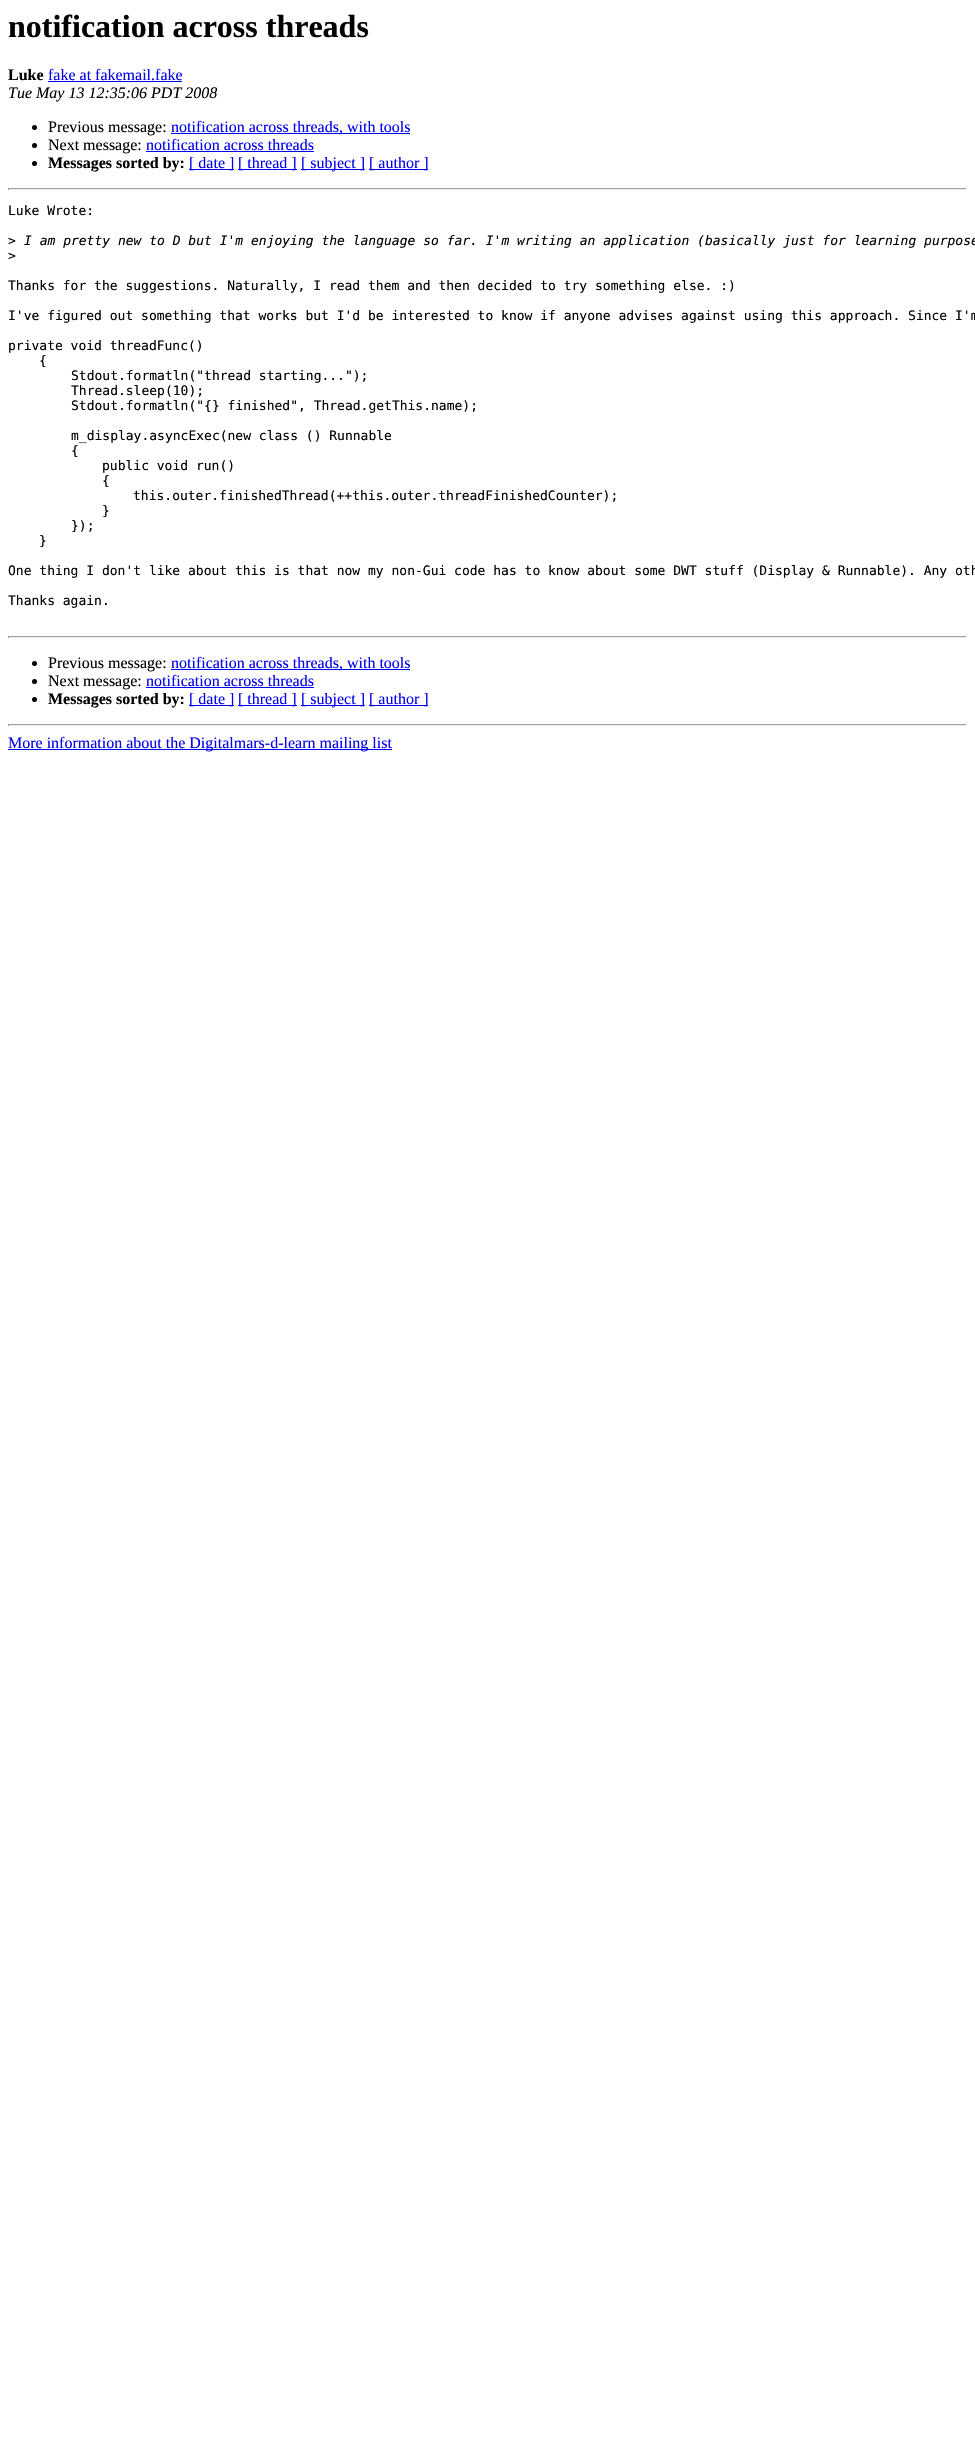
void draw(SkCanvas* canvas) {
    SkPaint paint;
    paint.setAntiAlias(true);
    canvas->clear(0xFFFFFFFF);
    SkFont font1(fontMgr->matchFamilyStyle("Liberation Serif", SkFontStyle::Bold()), 32);
    font1.setSubpixel(true);
    paint.setColor(0xFF000000);
    canvas->drawString("notification across threads", 8, 37, font1, paint);
    SkFont font2(fontMgr->matchFamilyStyle("Liberation Serif", SkFontStyle::Bold()), 16);
    font2.setSubpixel(true);
    canvas->drawString("Luke", 8, 80, font2, paint);
    SkFont font3(fontMgr->matchFamilyStyle("Liberation Serif", SkFontStyle::Normal()), 16);
    font3.setSubpixel(true);
    paint.setColor(0xFF0000EE);
    canvas->drawString("fake at fakemail.fake", 48, 80, font3, paint);
    canvas->drawRect(SkRect::MakeXYWH(48, 81, 134, 1), paint);
    SkFont font4(fontMgr->matchFamilyStyle("Liberation Serif", SkFontStyle::Italic()), 16);
    font4.setSubpixel(true);
    paint.setColor(0xFF000000);
    canvas->drawString("Tue May 13 12:35:06 PDT 2008", 8, 98, font4, paint);
    canvas->drawCircle(34.5f, 127.5f, 2.5f, paint);
    canvas->drawString("Previous message:", 48, 132, font3, paint);
    paint.setColor(0xFF0000EE);
    canvas->drawRect(SkRect::MakeXYWH(171, 133, 239, 1), paint);
    canvas->drawString("notification across threads, with tools", 171, 132, font3, paint);
    paint.setColor(0xFF000000);
    canvas->drawCircle(34.5f, 145.5f, 2.5f, paint);
    canvas->drawString("Next message:", 48, 150, font3, paint);
    paint.setColor(0xFF0000EE);
    canvas->drawString("notification across threads", 146, 150, font3, paint);
    canvas->drawRect(SkRect::MakeXYWH(146, 151, 168, 1), paint);
    paint.setColor(0xFF000000);
    canvas->drawCircle(34.5f, 163.5f, 2.5f, paint);
    canvas->drawString("Messages sorted by:", 48, 168, font2, paint);
    paint.setColor(0xFF0000EE);
    canvas->drawRect(SkRect::MakeXYWH(189, 169, 45, 1), paint);
    canvas->drawString("[ date ]", 189, 168, font3, paint);
    canvas->drawRect(SkRect::MakeXYWH(238, 169, 59, 1), paint);
    canvas->drawString("[ thread ]", 238, 168, font3, paint);
    canvas->drawRect(SkRect::MakeXYWH(301, 169, 64, 1), paint);
    canvas->drawString("[ subject ]", 301, 168, font3, paint);
    canvas->drawRect(SkRect::MakeXYWH(369, 169, 59, 1), paint);
    canvas->drawString("[ author ]", 369, 168, font3, paint);
    paint.setColor(0xFF9F9F9F);
    canvas->drawRect(SkRect::MakeXYWH(8, 188, 959, 1), paint);
    paint.setColor(0xFFEEEEEE);
    canvas->drawRect(SkRect::MakeXYWH(966, 188, 1, 2), paint);
    canvas->drawRect(SkRect::MakeXYWH(8, 189, 959, 1), paint);
    paint.setColor(0xFF9F9F9F);
    canvas->drawRect(SkRect::MakeXYWH(8, 188, 1, 2), paint);
    SkFont font5(fontMgr->matchFamilyStyle("DejaVu Sans Mono", SkFontStyle::Normal()), 13);
    font5.setSubpixel(true);
    paint.setColor(0xFF000000);
    canvas->drawString("Luke Wrote:", 8, 215, font5, paint);
    canvas->drawString(">", 8, 245, font5, paint);
    SkFont font6(fontMgr->matchFamilyStyle("DejaVu Sans Mono", SkFontStyle::Italic()), 13);
    font6.setSubpixel(true);
    canvas->drawString("I am pretty new to D but I'm enjoying the language so far. I'm writing an application (basically just for learning purpose", 24, 245, font6, paint);
    canvas->drawString(">", 8, 260, font5, paint);
    canvas->drawString("Thanks for the suggestions. Naturally, I read them and then decided to try something else. :)", 8, 290, font5, paint);
    canvas->drawString("I've figured out something that works but I'd be interested to know if anyone advises against using this approach. Since I'm", 8, 320, font5, paint);
    canvas->drawString("private void threadFunc()", 8, 350, font5, paint);
    canvas->drawString("{", 39, 365, font5, paint);
    canvas->drawString("Stdout.formatln(\"thread starting...\");", 71, 380, font5, paint);
    canvas->drawString("Thread.sleep(10);", 71, 395, font5, paint);
    canvas->drawString("Stdout.formatln(\"{} finished\", Thread.getThis.name);", 71, 410, font5, paint);
    canvas->drawString("m_display.asyncExec(new class () Runnable", 71, 440, font5, paint);
    canvas->drawString("{", 71, 455, font5, paint);
    canvas->drawString("public void run()", 102, 470, font5, paint);
    canvas->drawString("{", 102, 485, font5, paint);
    canvas->drawString("this.outer.finishedThread(++this.outer.threadFinishedCounter);", 133, 500, font5, paint);
    canvas->drawString("}", 102, 515, font5, paint);
    canvas->drawString("});", 71, 530, font5, paint);
    canvas->drawString("}", 39, 545, font5, paint);
    canvas->drawString("One thing I don't like about this is that now my non-Gui code has to know about some DWT stuff (Display & Runnable). Any oth", 8, 575, font5, paint);
    canvas->drawString("Thanks again.", 8, 605, font5, paint);
    paint.setColor(0xFF9F9F9F);
    canvas->drawRect(SkRect::MakeXYWH(8, 636, 959, 1), paint);
    paint.setColor(0xFFEEEEEE);
    canvas->drawRect(SkRect::MakeXYWH(966, 636, 1, 2), paint);
    canvas->drawRect(SkRect::MakeXYWH(8, 637, 959, 1), paint);
    paint.setColor(0xFF9F9F9F);
    canvas->drawRect(SkRect::MakeXYWH(8, 636, 1, 2), paint);
    paint.setColor(0xFF000000);
    canvas->drawCircle(34.5f, 663.5f, 2.5f, paint);
    canvas->drawString("Previous message:", 48, 668, font3, paint);
    paint.setColor(0xFF0000EE);
    canvas->drawRect(SkRect::MakeXYWH(171, 669, 239, 1), paint);
    canvas->drawString("notification across threads, with tools", 171, 668, font3, paint);
    paint.setColor(0xFF000000);
    canvas->drawCircle(34.5f, 681.5f, 2.5f, paint);
    canvas->drawString("Next message:", 48, 686, font3, paint);
    paint.setColor(0xFF0000EE);
    canvas->drawString("notification across threads", 146, 686, font3, paint);
    canvas->drawRect(SkRect::MakeXYWH(146, 687, 168, 1), paint);
    paint.setColor(0xFF000000);
    canvas->drawCircle(34.5f, 699.5f, 2.5f, paint);
    canvas->drawString("Messages sorted by:", 48, 704, font2, paint);
    paint.setColor(0xFF0000EE);
    canvas->drawRect(SkRect::MakeXYWH(189, 705, 45, 1), paint);
    canvas->drawString("[ date ]", 189, 704, font3, paint);
    canvas->drawRect(SkRect::MakeXYWH(238, 705, 59, 1), paint);
    canvas->drawString("[ thread ]", 238, 704, font3, paint);
    canvas->drawRect(SkRect::MakeXYWH(301, 705, 64, 1), paint);
    canvas->drawString("[ subject ]", 301, 704, font3, paint);
    canvas->drawRect(SkRect::MakeXYWH(369, 705, 59, 1), paint);
    canvas->drawString("[ author ]", 369, 704, font3, paint);
    paint.setColor(0xFF9F9F9F);
    canvas->drawRect(SkRect::MakeXYWH(8, 724, 959, 1), paint);
    paint.setColor(0xFFEEEEEE);
    canvas->drawRect(SkRect::MakeXYWH(966, 724, 1, 2), paint);
    canvas->drawRect(SkRect::MakeXYWH(8, 725, 959, 1), paint);
    paint.setColor(0xFF9F9F9F);
    canvas->drawRect(SkRect::MakeXYWH(8, 724, 1, 2), paint);
    paint.setColor(0xFF0000EE);
    canvas->drawRect(SkRect::MakeXYWH(8, 749, 384, 1), paint);
    canvas->drawString("More information about the Digitalmars-d-learn mailing list", 8, 748, font3, paint);
}
